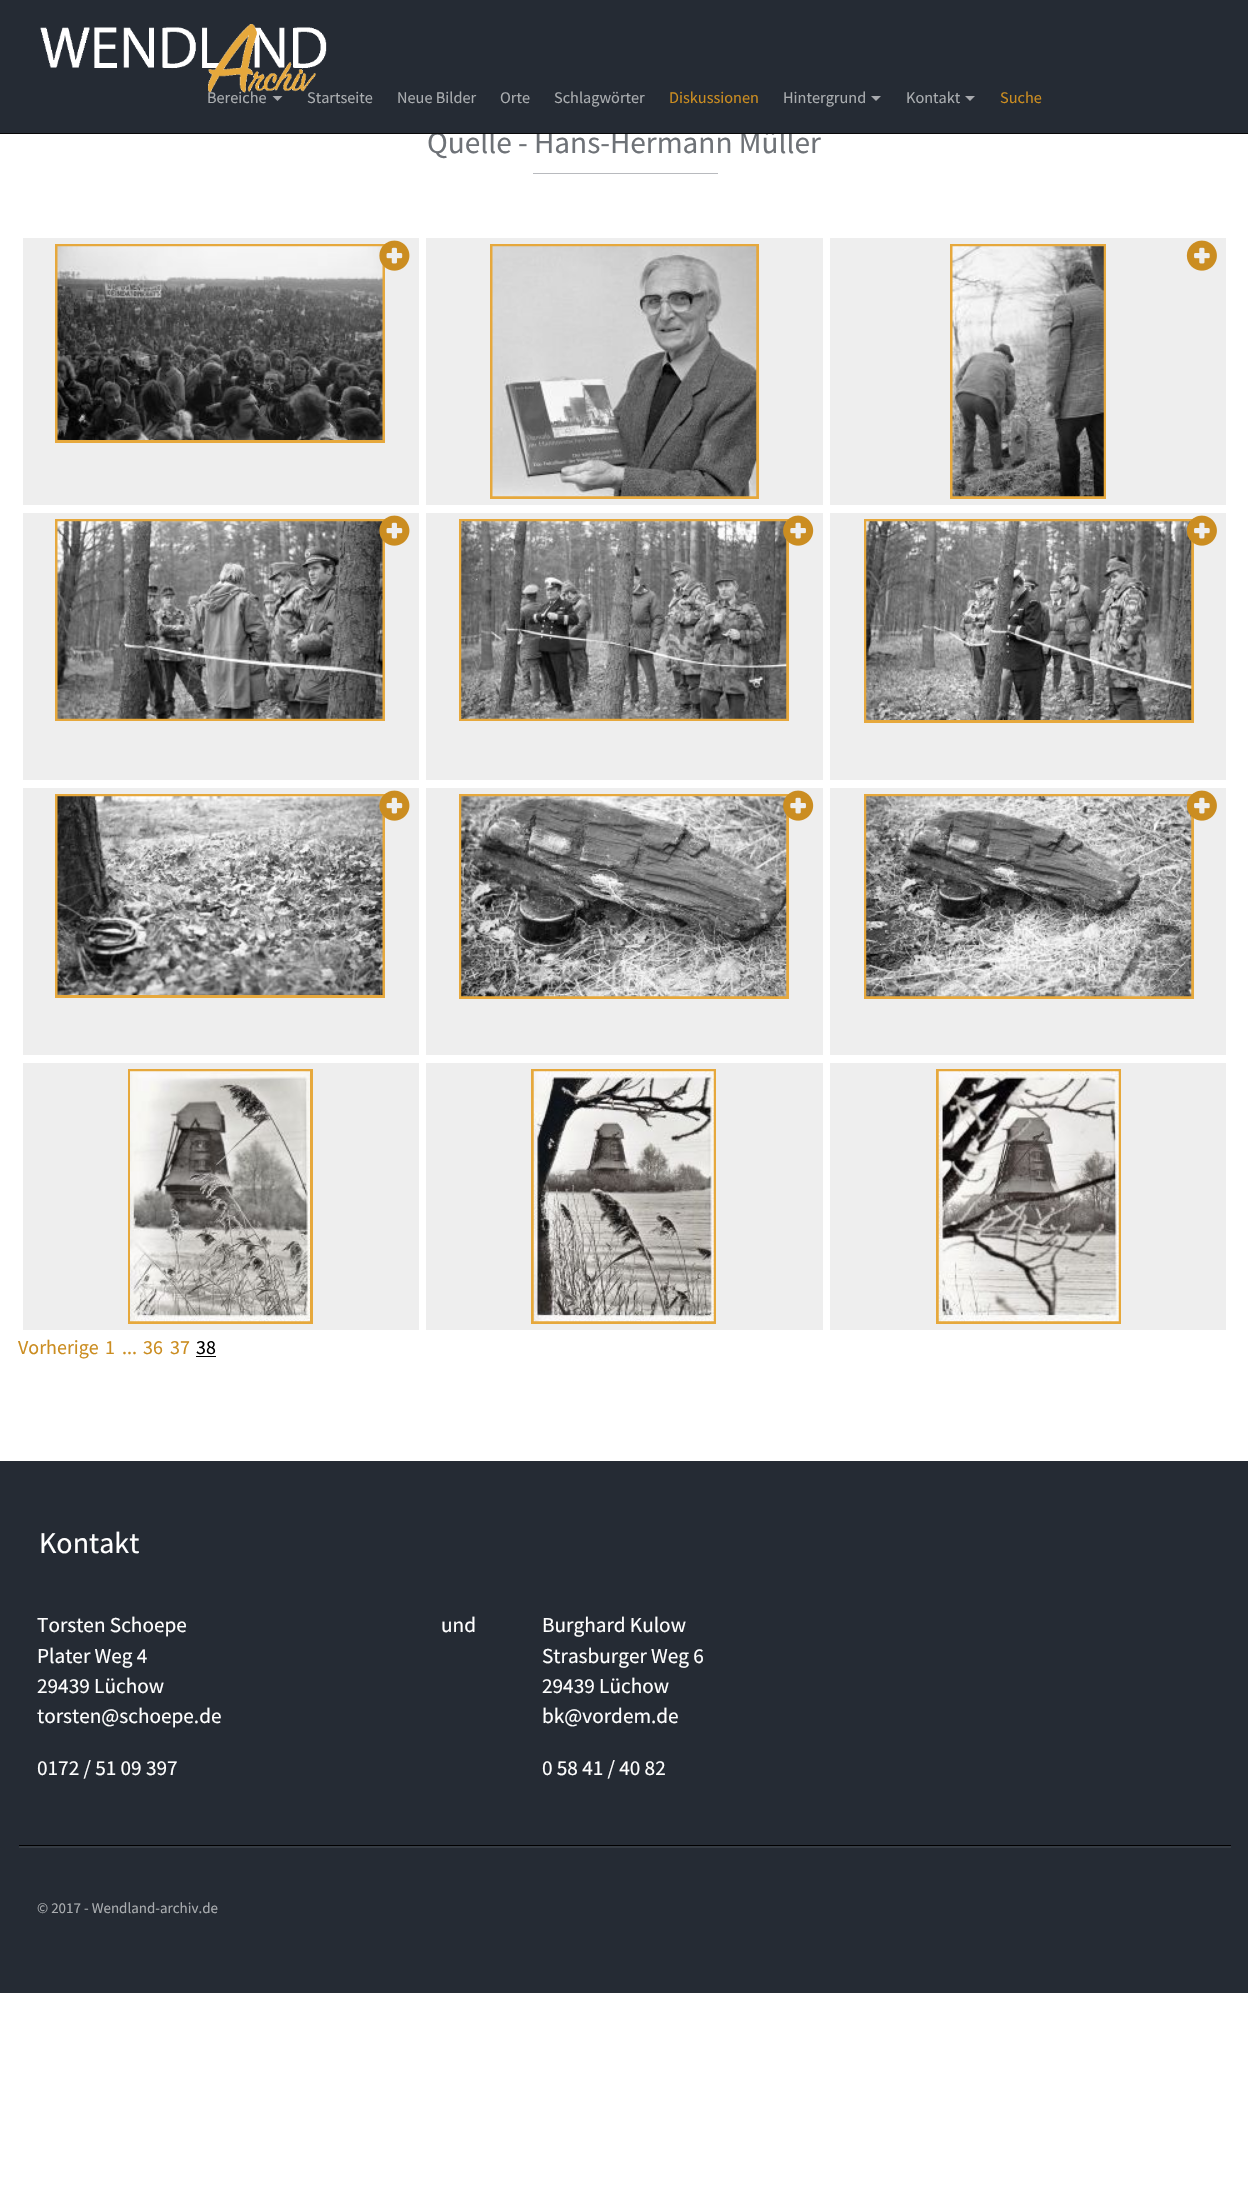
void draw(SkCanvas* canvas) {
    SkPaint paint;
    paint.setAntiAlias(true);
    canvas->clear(0xFFFFFFFF);
    SkFont font1(fontMgr->matchFamilyStyle("Source Sans Pro", SkFontStyle::Normal()), 31.25f);
    font1.setSubpixel(true);
    paint.setColor(0xFF6E7277);
    canvas->drawString("Quelle - Hans-Hermann Müller", 427, 153, font1, paint);
    paint.setColor(0xFF252B34);
    canvas->drawRect(SkRect::MakeXYWH(0, 0, 1248, 133), paint);
    paint.setColor(0xFF080808);
    canvas->drawRect(SkRect::MakeXYWH(0, 133, 1248, 1), paint);
    canvas->drawImageRect(SkImages::DeferredFromEncodedData(SkData::MakeFromFileName("img1.png")), SkRect::MakeXYWH(40, 24, 287, 69), SkSamplingOptions());
    SkFont font2(fontMgr->matchFamilyStyle("Source Sans Pro", SkFontStyle::Normal()), 16.25f);
    font2.setSubpixel(true);
    paint.setColor(0xFFAAADB0);
    canvas->drawString("Bereiche", 207, 103, font2, paint);
    paint.setColor(0xFFA8AAAE);
    canvas->drawPath(SkPathBuilder().moveTo(272.5f, 96).lineTo(282.5f, 96).lineTo(277.5f, 101).close().detach(), paint);
    paint.setColor(0xFFAAADB0);
    canvas->drawString("Startseite", 307, 103, font2, paint);
    canvas->drawString("Neue Bilder", 397, 103, font2, paint);
    canvas->drawString("Orte", 500, 103, font2, paint);
    canvas->drawString("Schlagwörter", 554, 103, font2, paint);
    paint.setColor(0xFFCB8D21);
    canvas->drawString("Diskussionen", 669, 103, font2, paint);
    paint.setColor(0xFFAAADB0);
    canvas->drawString("Hintergrund", 783, 103, font2, paint);
    paint.setColor(0xFFA8AAAE);
    canvas->drawPath(SkPathBuilder().moveTo(871, 96).lineTo(881, 96).lineTo(876, 101).close().detach(), paint);
    paint.setColor(0xFFAAADB0);
    canvas->drawString("Kontakt", 906, 103, font2, paint);
    paint.setColor(0xFFA8AAAE);
    canvas->drawPath(SkPathBuilder().moveTo(965, 96).lineTo(975, 96).lineTo(970, 101).close().detach(), paint);
    paint.setColor(0xFFCB8D21);
    canvas->drawString("Suche", 1000, 103, font2, paint);
    paint.setColor(0xFFB8BABE);
    canvas->drawRect(SkRect::MakeXYWH(533, 173, 185, 1), paint);
    paint.setColor(0xFFEEEEEE);
    canvas->drawRect(SkRect::MakeXYWH(23, 238, 396, 267), paint);
    paint.setStyle(SkPaint::kStroke_Style);
    paint.setStrokeWidth(3);
    paint.setColor(0xFFE6A83C);
    canvas->drawRect(SkRect::MakeXYWH(56.5f, 245.5f, 327, 196), paint);
    canvas->drawImageRect(SkImages::DeferredFromEncodedData(SkData::MakeFromFileName("img3.png")), SkRect::MakeXYWH(57, 246, 326, 194), SkSamplingOptions());
    canvas->drawImageRect(SkImages::DeferredFromEncodedData(SkData::MakeFromFileName("img2.png")), SkRect::MakeXYWH(379, 240, 31, 31), SkSamplingOptions());
    paint.setStyle(SkPaint::kFill_Style);
    paint.setColor(0xFFEEEEEE);
    canvas->drawRect(SkRect::MakeXYWH(426, 238, 397, 267), paint);
    paint.setStyle(SkPaint::kStroke_Style);
    paint.setColor(0xFFE6A83C);
    canvas->drawRect(SkRect::MakeXYWH(491.5f, 245.5f, 266, 252), paint);
    canvas->drawImageRect(SkImages::DeferredFromEncodedData(SkData::MakeFromFileName("img4.png")), SkRect::MakeXYWH(492, 246, 265, 251), SkSamplingOptions());
    paint.setStyle(SkPaint::kFill_Style);
    paint.setColor(0xFFEEEEEE);
    canvas->drawRect(SkRect::MakeXYWH(830, 238, 396, 267), paint);
    paint.setStyle(SkPaint::kStroke_Style);
    paint.setColor(0xFFE6A83C);
    canvas->drawRect(SkRect::MakeXYWH(951.5f, 245.5f, 153, 252), paint);
    canvas->drawImageRect(SkImages::DeferredFromEncodedData(SkData::MakeFromFileName("img5.png")), SkRect::MakeXYWH(1186, 240, 31, 31), SkSamplingOptions());
    canvas->drawImageRect(SkImages::DeferredFromEncodedData(SkData::MakeFromFileName("img6.png")), SkRect::MakeXYWH(952, 246, 152, 251), SkSamplingOptions());
    paint.setStyle(SkPaint::kFill_Style);
    paint.setColor(0xFFEEEEEE);
    canvas->drawRect(SkRect::MakeXYWH(23, 513, 396, 267), paint);
    paint.setStyle(SkPaint::kStroke_Style);
    paint.setColor(0xFFE6A83C);
    canvas->drawRect(SkRect::MakeXYWH(56.5f, 520.5f, 327, 199), paint);
    canvas->drawImageRect(SkImages::DeferredFromEncodedData(SkData::MakeFromFileName("img8.png")), SkRect::MakeXYWH(57, 521, 326, 198), SkSamplingOptions());
    canvas->drawImageRect(SkImages::DeferredFromEncodedData(SkData::MakeFromFileName("img7.png")), SkRect::MakeXYWH(379, 515, 31, 31), SkSamplingOptions());
    paint.setStyle(SkPaint::kFill_Style);
    paint.setColor(0xFFEEEEEE);
    canvas->drawRect(SkRect::MakeXYWH(426, 513, 397, 267), paint);
    paint.setStyle(SkPaint::kStroke_Style);
    paint.setColor(0xFFE6A83C);
    canvas->drawRect(SkRect::MakeXYWH(460.5f, 520.5f, 327, 199), paint);
    canvas->drawImageRect(SkImages::DeferredFromEncodedData(SkData::MakeFromFileName("img10.png")), SkRect::MakeXYWH(461, 521, 326, 198), SkSamplingOptions());
    canvas->drawImageRect(SkImages::DeferredFromEncodedData(SkData::MakeFromFileName("img9.png")), SkRect::MakeXYWH(783, 515, 31, 31), SkSamplingOptions());
    paint.setStyle(SkPaint::kFill_Style);
    paint.setColor(0xFFEEEEEE);
    canvas->drawRect(SkRect::MakeXYWH(830, 513, 396, 267), paint);
    paint.setStyle(SkPaint::kStroke_Style);
    paint.setColor(0xFFE6A83C);
    canvas->drawRect(SkRect::MakeXYWH(865.5f, 520.5f, 327, 201), paint);
    canvas->drawImageRect(SkImages::DeferredFromEncodedData(SkData::MakeFromFileName("img12.png")), SkRect::MakeXYWH(866, 521, 326, 199), SkSamplingOptions());
    canvas->drawImageRect(SkImages::DeferredFromEncodedData(SkData::MakeFromFileName("img11.png")), SkRect::MakeXYWH(1186, 515, 31, 31), SkSamplingOptions());
    paint.setStyle(SkPaint::kFill_Style);
    paint.setColor(0xFFEEEEEE);
    canvas->drawRect(SkRect::MakeXYWH(23, 788, 396, 267), paint);
    paint.setStyle(SkPaint::kStroke_Style);
    paint.setColor(0xFFE6A83C);
    canvas->drawRect(SkRect::MakeXYWH(56.5f, 795.5f, 327, 201), paint);
    canvas->drawImageRect(SkImages::DeferredFromEncodedData(SkData::MakeFromFileName("img14.png")), SkRect::MakeXYWH(57, 796, 326, 199), SkSamplingOptions());
    canvas->drawImageRect(SkImages::DeferredFromEncodedData(SkData::MakeFromFileName("img13.png")), SkRect::MakeXYWH(379, 790, 31, 31), SkSamplingOptions());
    paint.setStyle(SkPaint::kFill_Style);
    paint.setColor(0xFFEEEEEE);
    canvas->drawRect(SkRect::MakeXYWH(426, 788, 397, 267), paint);
    paint.setStyle(SkPaint::kStroke_Style);
    paint.setColor(0xFFE6A83C);
    canvas->drawRect(SkRect::MakeXYWH(460.5f, 795.5f, 327, 202), paint);
    canvas->drawImageRect(SkImages::DeferredFromEncodedData(SkData::MakeFromFileName("img16.png")), SkRect::MakeXYWH(461, 796, 326, 201), SkSamplingOptions());
    canvas->drawImageRect(SkImages::DeferredFromEncodedData(SkData::MakeFromFileName("img15.png")), SkRect::MakeXYWH(783, 790, 31, 31), SkSamplingOptions());
    paint.setStyle(SkPaint::kFill_Style);
    paint.setColor(0xFFEEEEEE);
    canvas->drawRect(SkRect::MakeXYWH(830, 788, 396, 267), paint);
    paint.setStyle(SkPaint::kStroke_Style);
    paint.setColor(0xFFE6A83C);
    canvas->drawRect(SkRect::MakeXYWH(865.5f, 795.5f, 327, 202), paint);
    canvas->drawImageRect(SkImages::DeferredFromEncodedData(SkData::MakeFromFileName("img18.png")), SkRect::MakeXYWH(866, 796, 326, 201), SkSamplingOptions());
    canvas->drawImageRect(SkImages::DeferredFromEncodedData(SkData::MakeFromFileName("img17.png")), SkRect::MakeXYWH(1186, 790, 31, 31), SkSamplingOptions());
    paint.setStyle(SkPaint::kFill_Style);
    paint.setColor(0xFFEEEEEE);
    canvas->drawRect(SkRect::MakeXYWH(23, 1063, 396, 267), paint);
    paint.setStyle(SkPaint::kStroke_Style);
    paint.setColor(0xFFE6A83C);
    canvas->drawRect(SkRect::MakeXYWH(129.5f, 1070.5f, 182, 252), paint);
    canvas->drawImageRect(SkImages::DeferredFromEncodedData(SkData::MakeFromFileName("img19.png")), SkRect::MakeXYWH(130, 1071, 180, 251), SkSamplingOptions());
    paint.setStyle(SkPaint::kFill_Style);
    paint.setColor(0xFFEEEEEE);
    canvas->drawRect(SkRect::MakeXYWH(426, 1063, 397, 267), paint);
    paint.setStyle(SkPaint::kStroke_Style);
    paint.setColor(0xFFE6A83C);
    canvas->drawRect(SkRect::MakeXYWH(532.5f, 1070.5f, 182, 252), paint);
    canvas->drawImageRect(SkImages::DeferredFromEncodedData(SkData::MakeFromFileName("img20.png")), SkRect::MakeXYWH(533, 1071, 181, 251), SkSamplingOptions());
    paint.setStyle(SkPaint::kFill_Style);
    paint.setColor(0xFFEEEEEE);
    canvas->drawRect(SkRect::MakeXYWH(830, 1063, 396, 267), paint);
    paint.setStyle(SkPaint::kStroke_Style);
    paint.setColor(0xFFE6A83C);
    canvas->drawRect(SkRect::MakeXYWH(937.5f, 1070.5f, 182, 252), paint);
    canvas->drawImageRect(SkImages::DeferredFromEncodedData(SkData::MakeFromFileName("img21.png")), SkRect::MakeXYWH(938, 1071, 181, 251), SkSamplingOptions());
    SkFont font3(fontMgr->matchFamilyStyle("Source Sans Pro", SkFontStyle::Normal()), 20);
    font3.setSubpixel(true);
    paint.setStyle(SkPaint::kFill_Style);
    paint.setColor(0xFFCB8D21);
    canvas->drawString("Vorherige", 18, 1354, font3, paint);
    canvas->drawString("1", 105, 1354, font3, paint);
    canvas->drawString("...", 122, 1354, font3, paint);
    canvas->drawString("36", 143, 1354, font3, paint);
    canvas->drawString("37", 170, 1354, font3, paint);
    paint.setColor(0xFF000000);
    canvas->drawString("38", 196, 1354, font3, paint);
    canvas->drawRect(SkRect::MakeXYWH(196, 1356, 20, 1), paint);
    paint.setColor(0xFF252B34);
    canvas->drawRect(SkRect::MakeXYWH(0, 1461, 1248, 532), paint);
    paint.setColor(0xFF353B43);
    canvas->drawRect(SkRect::MakeXYWH(19, 1846, 1212, 2), paint);
    paint.setColor(0xFF000000);
    canvas->drawRect(SkRect::MakeXYWH(19, 1845, 1212, 1), paint);
    SkFont font4(fontMgr->matchFamilyStyle("Source Sans Pro", SkFontStyle::Normal()), 30);
    font4.setSubpixel(true);
    paint.setColor(0xFFFFFFFF);
    canvas->drawString("Kontakt", 39, 1553, font4, paint);
    SkFont font5(fontMgr->matchFamilyStyle("Source Sans Pro", SkFontStyle::Normal()), 21.25f);
    font5.setSubpixel(true);
    canvas->drawString("Torsten Schoepe", 37, 1632, font5, paint);
    canvas->drawString("Plater Weg 4", 37, 1663, font5, paint);
    canvas->drawString("29439 Lüchow", 37, 1693, font5, paint);
    canvas->drawString("torsten@schoepe.de", 37, 1723, font5, paint);
    canvas->drawString("0172 / 51 09 397", 37, 1775, font5, paint);
    canvas->drawString("und", 441, 1632, font5, paint);
    canvas->drawString("Burghard Kulow", 542, 1632, font5, paint);
    canvas->drawString("Strasburger Weg 6", 542, 1663, font5, paint);
    canvas->drawString("29439 Lüchow", 542, 1693, font5, paint);
    canvas->drawString("bk@vordem.de", 542, 1723, font5, paint);
    canvas->drawString("0 58 41 / 40 82", 542, 1775, font5, paint);
    SkFont font6(fontMgr->matchFamilyStyle("Source Sans Pro", SkFontStyle::Normal()), 15);
    font6.setSubpixel(true);
    paint.setColor(0xFFAAADB0);
    canvas->drawString("© 2017 - Wendland-archiv.de", 37, 1913, font6, paint);
}
